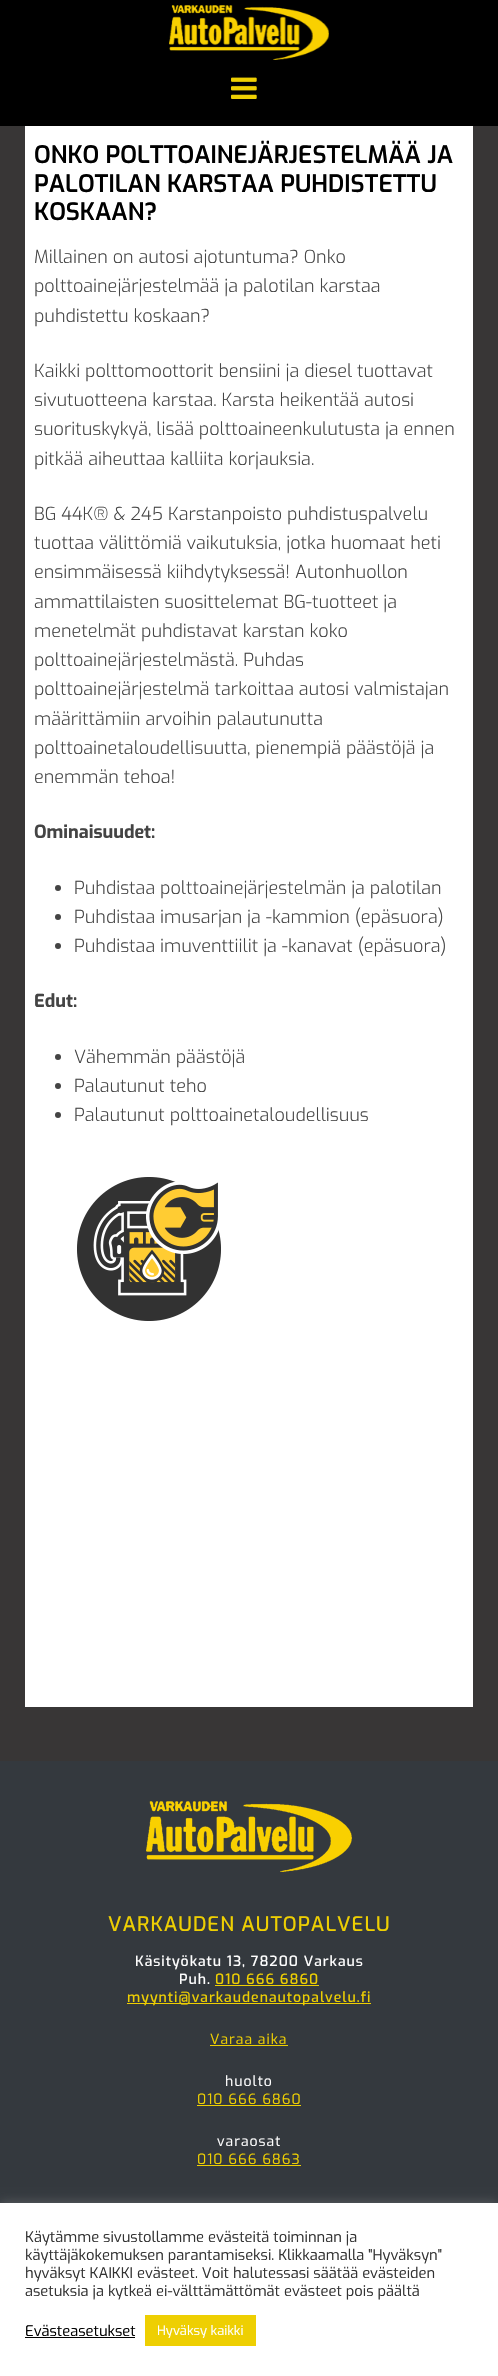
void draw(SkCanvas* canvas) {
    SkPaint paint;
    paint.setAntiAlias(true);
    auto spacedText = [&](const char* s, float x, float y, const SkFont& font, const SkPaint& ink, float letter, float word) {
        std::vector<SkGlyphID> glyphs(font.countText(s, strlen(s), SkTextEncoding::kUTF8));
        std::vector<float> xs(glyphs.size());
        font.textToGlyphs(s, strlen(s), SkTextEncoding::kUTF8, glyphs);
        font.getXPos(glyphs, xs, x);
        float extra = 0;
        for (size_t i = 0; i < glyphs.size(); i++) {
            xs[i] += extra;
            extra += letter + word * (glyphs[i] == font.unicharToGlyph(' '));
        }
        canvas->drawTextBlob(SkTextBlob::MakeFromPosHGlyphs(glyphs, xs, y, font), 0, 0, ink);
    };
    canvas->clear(0xFF383636);
    paint.setColor(0xFF000000);
    canvas->drawRect(SkRect::MakeXYWH(0, 0, 498, 126), paint);
    canvas->drawImageRect(SkImages::DeferredFromEncodedData(SkData::MakeFromFileName("img1.png")), SkRect::MakeXYWH(169, 5, 160, 55), SkSamplingOptions());
    canvas->drawImageRect(SkImages::DeferredFromEncodedData(SkData::MakeFromFileName("img2.png")), SkRect::MakeXYWH(231, 77, 26, 22), SkSamplingOptions());
    paint.setColor(0xFFFFFFFF);
    canvas->drawRect(SkRect::MakeXYWH(25, 126, 448, 1581), paint);
    SkFont font1(fontMgr->matchFamilyStyle("Exo", SkFontStyle(600, SkFontStyle::kNormal_Width, SkFontStyle::kUpright_Slant)), 24);
    font1.setSubpixel(true);
    paint.setColor(0xFF000000);
    canvas->drawString("ONKO POLTTOAINEJÄRJESTELMÄÄ JA", 34, 163, font1, paint);
    canvas->drawString("PALOTILAN KARSTAA PUHDISTETTU", 34, 192, font1, paint);
    canvas->drawString("KOSKAAN?", 34, 220, font1, paint);
    SkFont font2(fontMgr->matchFamilyStyle("Exo", SkFontStyle(300, SkFontStyle::kNormal_Width, SkFontStyle::kUpright_Slant)), 18);
    font2.setSubpixel(true);
    paint.setColor(0xFF444444);
    canvas->drawString("Millainen on autosi ajotuntuma? Onko", 34, 263, font2, paint);
    canvas->drawString("polttoainejärjestelmää ja palotilan karstaa", 34, 292, font2, paint);
    canvas->drawString("puhdistettu koskaan?", 34, 322, font2, paint);
    canvas->drawString("Kaikki polttomoottorit bensiini ja diesel tuottavat", 34, 377, font2, paint);
    canvas->drawString("sivutuotteena karstaa. Karsta heikentää autosi", 34, 406, font2, paint);
    canvas->drawString("suorituskykyä, lisää polttoaineenkulutusta ja ennen", 34, 435, font2, paint);
    canvas->drawString("pitkää aiheuttaa kalliita korjauksia.", 34, 465, font2, paint);
    canvas->drawString("BG 44K® & 245 Karstanpoisto puhdistuspalvelu", 34, 520, font2, paint);
    canvas->drawString("tuottaa välittömiä vaikutuksia, jotka huomaat heti", 34, 549, font2, paint);
    canvas->drawString("ensimmäisessä kiihdytyksessä! Autonhuollon", 34, 578, font2, paint);
    canvas->drawString("ammattilaisten suosittelemat BG-tuotteet ja", 34, 608, font2, paint);
    canvas->drawString("menetelmät puhdistavat karstan koko", 34, 637, font2, paint);
    canvas->drawString("polttoainejärjestelmästä. Puhdas", 34, 666, font2, paint);
    canvas->drawString("polttoainejärjestelmä tarkoittaa autosi valmistajan", 34, 695, font2, paint);
    canvas->drawString("määrittämiin arvoihin palautunutta", 34, 725, font2, paint);
    canvas->drawString("polttoainetaloudellisuutta, pienempiä päästöjä ja", 34, 754, font2, paint);
    canvas->drawString("enemmän tehoa!", 34, 783, font2, paint);
    SkFont font3(fontMgr->matchFamilyStyle("Exo", SkFontStyle::Bold()), 18);
    font3.setSubpixel(true);
    canvas->drawString("Ominaisuudet:", 34, 838, font3, paint);
    canvas->drawCircle(58, 888, 3, paint);
    canvas->drawString("Puhdistaa polttoainejärjestelmän ja palotilan", 74, 894, font2, paint);
    canvas->drawCircle(58, 917, 3, paint);
    canvas->drawString("Puhdistaa imusarjan ja -kammion (epäsuora)", 74, 923, font2, paint);
    canvas->drawCircle(58, 946, 3, paint);
    canvas->drawString("Puhdistaa imuventtiilit ja -kanavat (epäsuora)", 74, 952, font2, paint);
    canvas->drawString("Edut:", 34, 1007, font3, paint);
    canvas->drawCircle(58, 1057, 3, paint);
    canvas->drawString("Vähemmän päästöjä", 74, 1063, font2, paint);
    canvas->drawCircle(58, 1086, 3, paint);
    canvas->drawString("Palautunut teho", 74, 1092, font2, paint);
    canvas->drawCircle(58, 1115, 3, paint);
    canvas->drawString("Palautunut polttoainetaloudellisuus", 74, 1121, font2, paint);
    canvas->drawImageRect(SkImages::DeferredFromEncodedData(SkData::MakeFromFileName("img3.png")), SkRect::MakeXYWH(77, 1177, 144, 144), SkSamplingOptions());
    paint.setColor(0xFF34393E);
    canvas->drawRect(SkRect::MakeXYWH(0, 1761, 498, 442), paint);
    canvas->drawImageRect(SkImages::DeferredFromEncodedData(SkData::MakeFromFileName("img4.png")), SkRect::MakeXYWH(146, 1801, 206, 71), SkSamplingOptions());
    SkFont font4(fontMgr->matchFamilyStyle("Exo", SkFontStyle(500, SkFontStyle::kNormal_Width, SkFontStyle::kUpright_Slant)), 20);
    font4.setSubpixel(true);
    paint.setColor(0xFFEECF02);
    spacedText("VARKAUDEN AUTOPALVELU", 108, 1931, font4, paint, 1, 0);
    SkFont font5(fontMgr->matchFamilyStyle("Exo", SkFontStyle(500, SkFontStyle::kNormal_Width, SkFontStyle::kUpright_Slant)), 14);
    font5.setSubpixel(true);
    paint.setColor(0xFFFFFFFF);
    spacedText("Käsityökatu 13, 78200 Varkaus", 135, 1966, font5, paint, 1, 0);
    spacedText("Puh.", 179, 1984, font5, paint, 1, 0);
    paint.setColor(0xFFEECF02);
    spacedText("010 666 6860", 215, 1984, font5, paint, 1, 0);
    canvas->drawRect(SkRect::MakeXYWH(215, 1985, 104, 1), paint);
    canvas->drawRect(SkRect::MakeXYWH(127, 2003, 244, 1), paint);
    spacedText("myynti@varkaudenautopalvelu.fi", 127, 2002, font5, paint, 1, 0);
    SkFont font6(fontMgr->matchFamilyStyle("Exo", SkFontStyle::Normal()), 14);
    font6.setSubpixel(true);
    spacedText("Varaa aika", 210, 2044, font6, paint, 1, 0);
    canvas->drawRect(SkRect::MakeXYWH(210, 2045, 78, 1), paint);
    paint.setColor(0xFFFFFFFF);
    spacedText("huolto", 225, 2086, font6, paint, 1, 0);
    paint.setColor(0xFFEECF02);
    spacedText("010 666 6860", 197, 2104, font6, paint, 1, 0);
    canvas->drawRect(SkRect::MakeXYWH(197, 2105, 104, 1), paint);
    paint.setColor(0xFFFFFFFF);
    spacedText("varaosat", 217, 2146, font6, paint, 1, 0);
    paint.setColor(0xFFEECF02);
    spacedText("010 666 6863", 197, 2164, font6, paint, 1, 0);
    canvas->drawRect(SkRect::MakeXYWH(197, 2165, 104, 1), paint);
    paint.setColor(0x4DACABAB);
    paint.setMaskFilter(SkMaskFilter::MakeBlur(kNormal_SkBlurStyle, 5));
    canvas->drawRect(SkRect::MakeXYWH(0, 2202, 498, 173), paint);
    paint.setMaskFilter(nullptr);
    paint.setColor(0xFFFFFFFF);
    canvas->drawRect(SkRect::MakeXYWH(0, 2203, 498, 173), paint);
    SkFont font7(fontMgr->matchFamilyStyle("Exo", SkFontStyle::Normal()), 14.7f);
    font7.setSubpixel(true);
    paint.setColor(0xFF333333);
    canvas->drawString("Käytämme sivustollamme evästeitä toiminnan ja", 25, 2242, font7, paint);
    canvas->drawString("käyttäjäkokemuksen parantamiseksi. Klikkaamalla \"Hyväksyn\"", 25, 2260, font7, paint);
    canvas->drawString("hyväksyt KAIKKI evästeet. Voit halutessasi säätää evästeiden", 25, 2278, font7, paint);
    canvas->drawString("asetuksia ja kytkeä ei-välttämättömät evästeet pois päältä", 25, 2296, font7, paint);
    paint.setColor(0xFF000000);
    canvas->drawString("Evästeasetukset", 25, 2336, font7, paint);
    canvas->drawRect(SkRect::MakeXYWH(25, 2337, 110, 1), paint);
    paint.setColor(0xFFEECF02);
    canvas->drawRect(SkRect::MakeXYWH(145, 2315, 111, 31), paint);
    SkFont font8(fontMgr->matchFamilyStyle("Exo", SkFontStyle::Normal()), 13);
    font8.setSubpixel(true);
    paint.setColor(0xFFFFFFFF);
    canvas->drawString("Hyväksy kaikki", 157, 2335, font8, paint);
}
